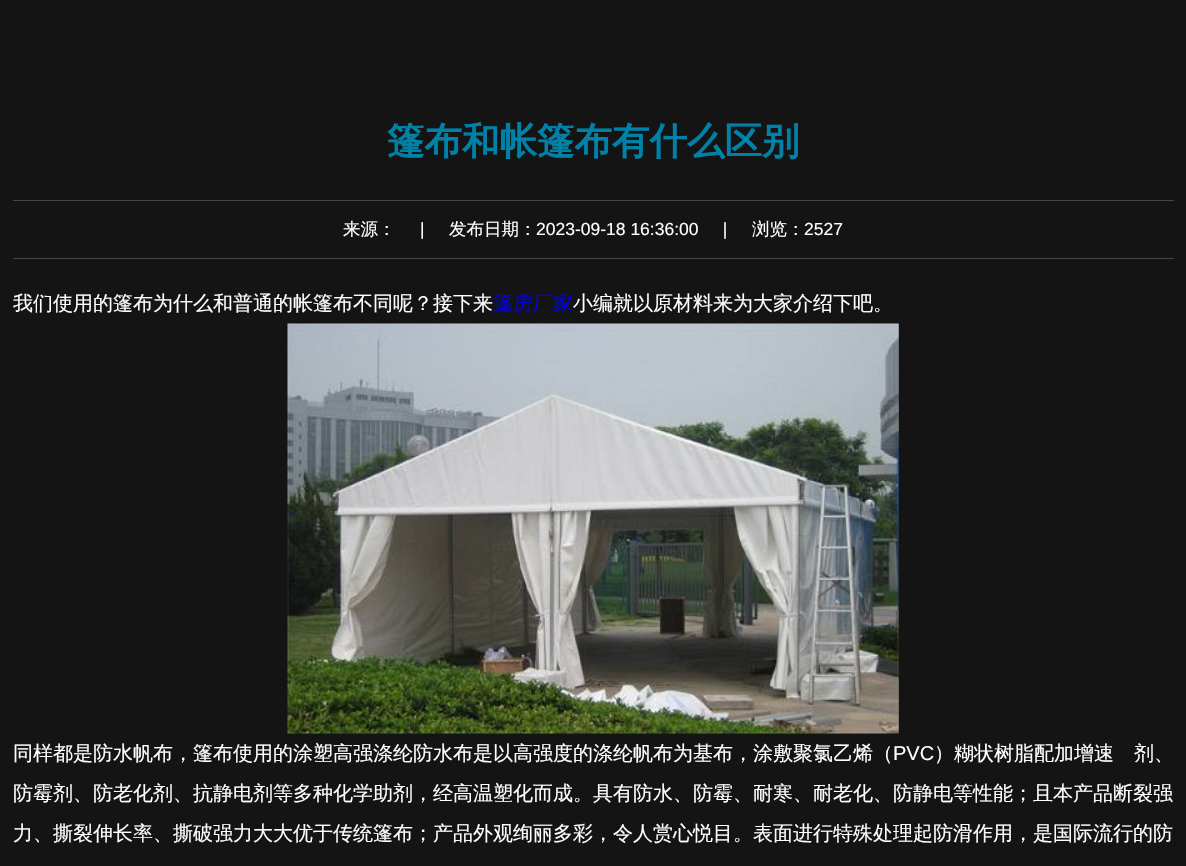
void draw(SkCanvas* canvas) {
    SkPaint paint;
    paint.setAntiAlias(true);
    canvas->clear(0xFF141414);
    SkFont font1(fontMgr->matchFamilyStyle("WenQuanYi Zen Hei", SkFontStyle::Bold()), 37.5f);
    font1.setSubpixel(true);
    paint.setColor(0xFF0081A8);
    canvas->drawString("篷布和帐篷布有什么区别", 387, 154, font1, paint);
    paint.setColor(0xFF454545);
    canvas->drawRect(SkRect::MakeXYWH(13, 200, 1161, 1), paint);
    canvas->drawRect(SkRect::MakeXYWH(13, 258, 1161, 1), paint);
    SkFont font2(fontMgr->matchFamilyStyle("WenQuanYi Zen Hei", SkFontStyle(500, SkFontStyle::kNormal_Width, SkFontStyle::kUpright_Slant)), 17.5f);
    font2.setSubpixel(true);
    paint.setColor(0xFFFFFFFF);
    canvas->drawString("来源：", 343, 235, font2, paint);
    SkFont font3(fontMgr->matchFamilyStyle("Liberation Sans", SkFontStyle::Normal()), 17.5f);
    font3.setSubpixel(true);
    canvas->drawString("|", 420, 235, font3, paint);
    canvas->drawString("发布日期：", 449, 235, font2, paint);
    canvas->drawString("2023-09-18 16:36:00     |", 536, 235, font3, paint);
    canvas->drawString("浏览：", 752, 235, font2, paint);
    canvas->drawString("2527", 804, 235, font3, paint);
    SkFont font4(fontMgr->matchFamilyStyle("WenQuanYi Zen Hei", SkFontStyle(500, SkFontStyle::kNormal_Width, SkFontStyle::kUpright_Slant)), 20);
    font4.setSubpixel(true);
    canvas->drawString("我们使用的篷布为什么和普通的帐篷布不同呢？接下来", 13, 310, font4, paint);
    paint.setColor(0xFF0000EE);
    canvas->drawString("篷房厂家", 493, 310, font4, paint);
    paint.setColor(0xFFFFFFFF);
    canvas->drawString("小编就以原材料来为大家介绍下吧。", 573, 310, font4, paint);
    canvas->drawImageRect(SkImages::DeferredFromEncodedData(SkData::MakeFromFileName("img1.png")), SkRect::MakeXYWH(287, 323, 612, 411), SkSamplingOptions());
    canvas->drawString("同样都是防水帆布，篷布使用的涂塑高强涤纶防水布是以高强度的涤纶帆布为基布，涂敷聚氯乙烯（", 13, 760, font4, paint);
    SkFont font5(fontMgr->matchFamilyStyle("Liberation Sans", SkFontStyle::Normal()), 20);
    font5.setSubpixel(true);
    canvas->drawString("PVC", 893, 760, font5, paint);
    canvas->drawString("）糊状树脂配加增速　剂、", 934, 760, font4, paint);
    canvas->drawString("防霉剂、防老化剂、抗静电剂等多种化学助剂，经高温塑化而成。具有防水、防霉、耐寒、耐老化、防静电等性能；且本产品断裂强", 13, 800, font4, paint);
    canvas->drawString("力、撕裂伸长率、撕破强力大大优于传统篷布；产品外观绚丽多彩，令人赏心悦目。表面进行特殊处理起防滑作用，是国际流行的防", 13, 840, font4, paint);
}
